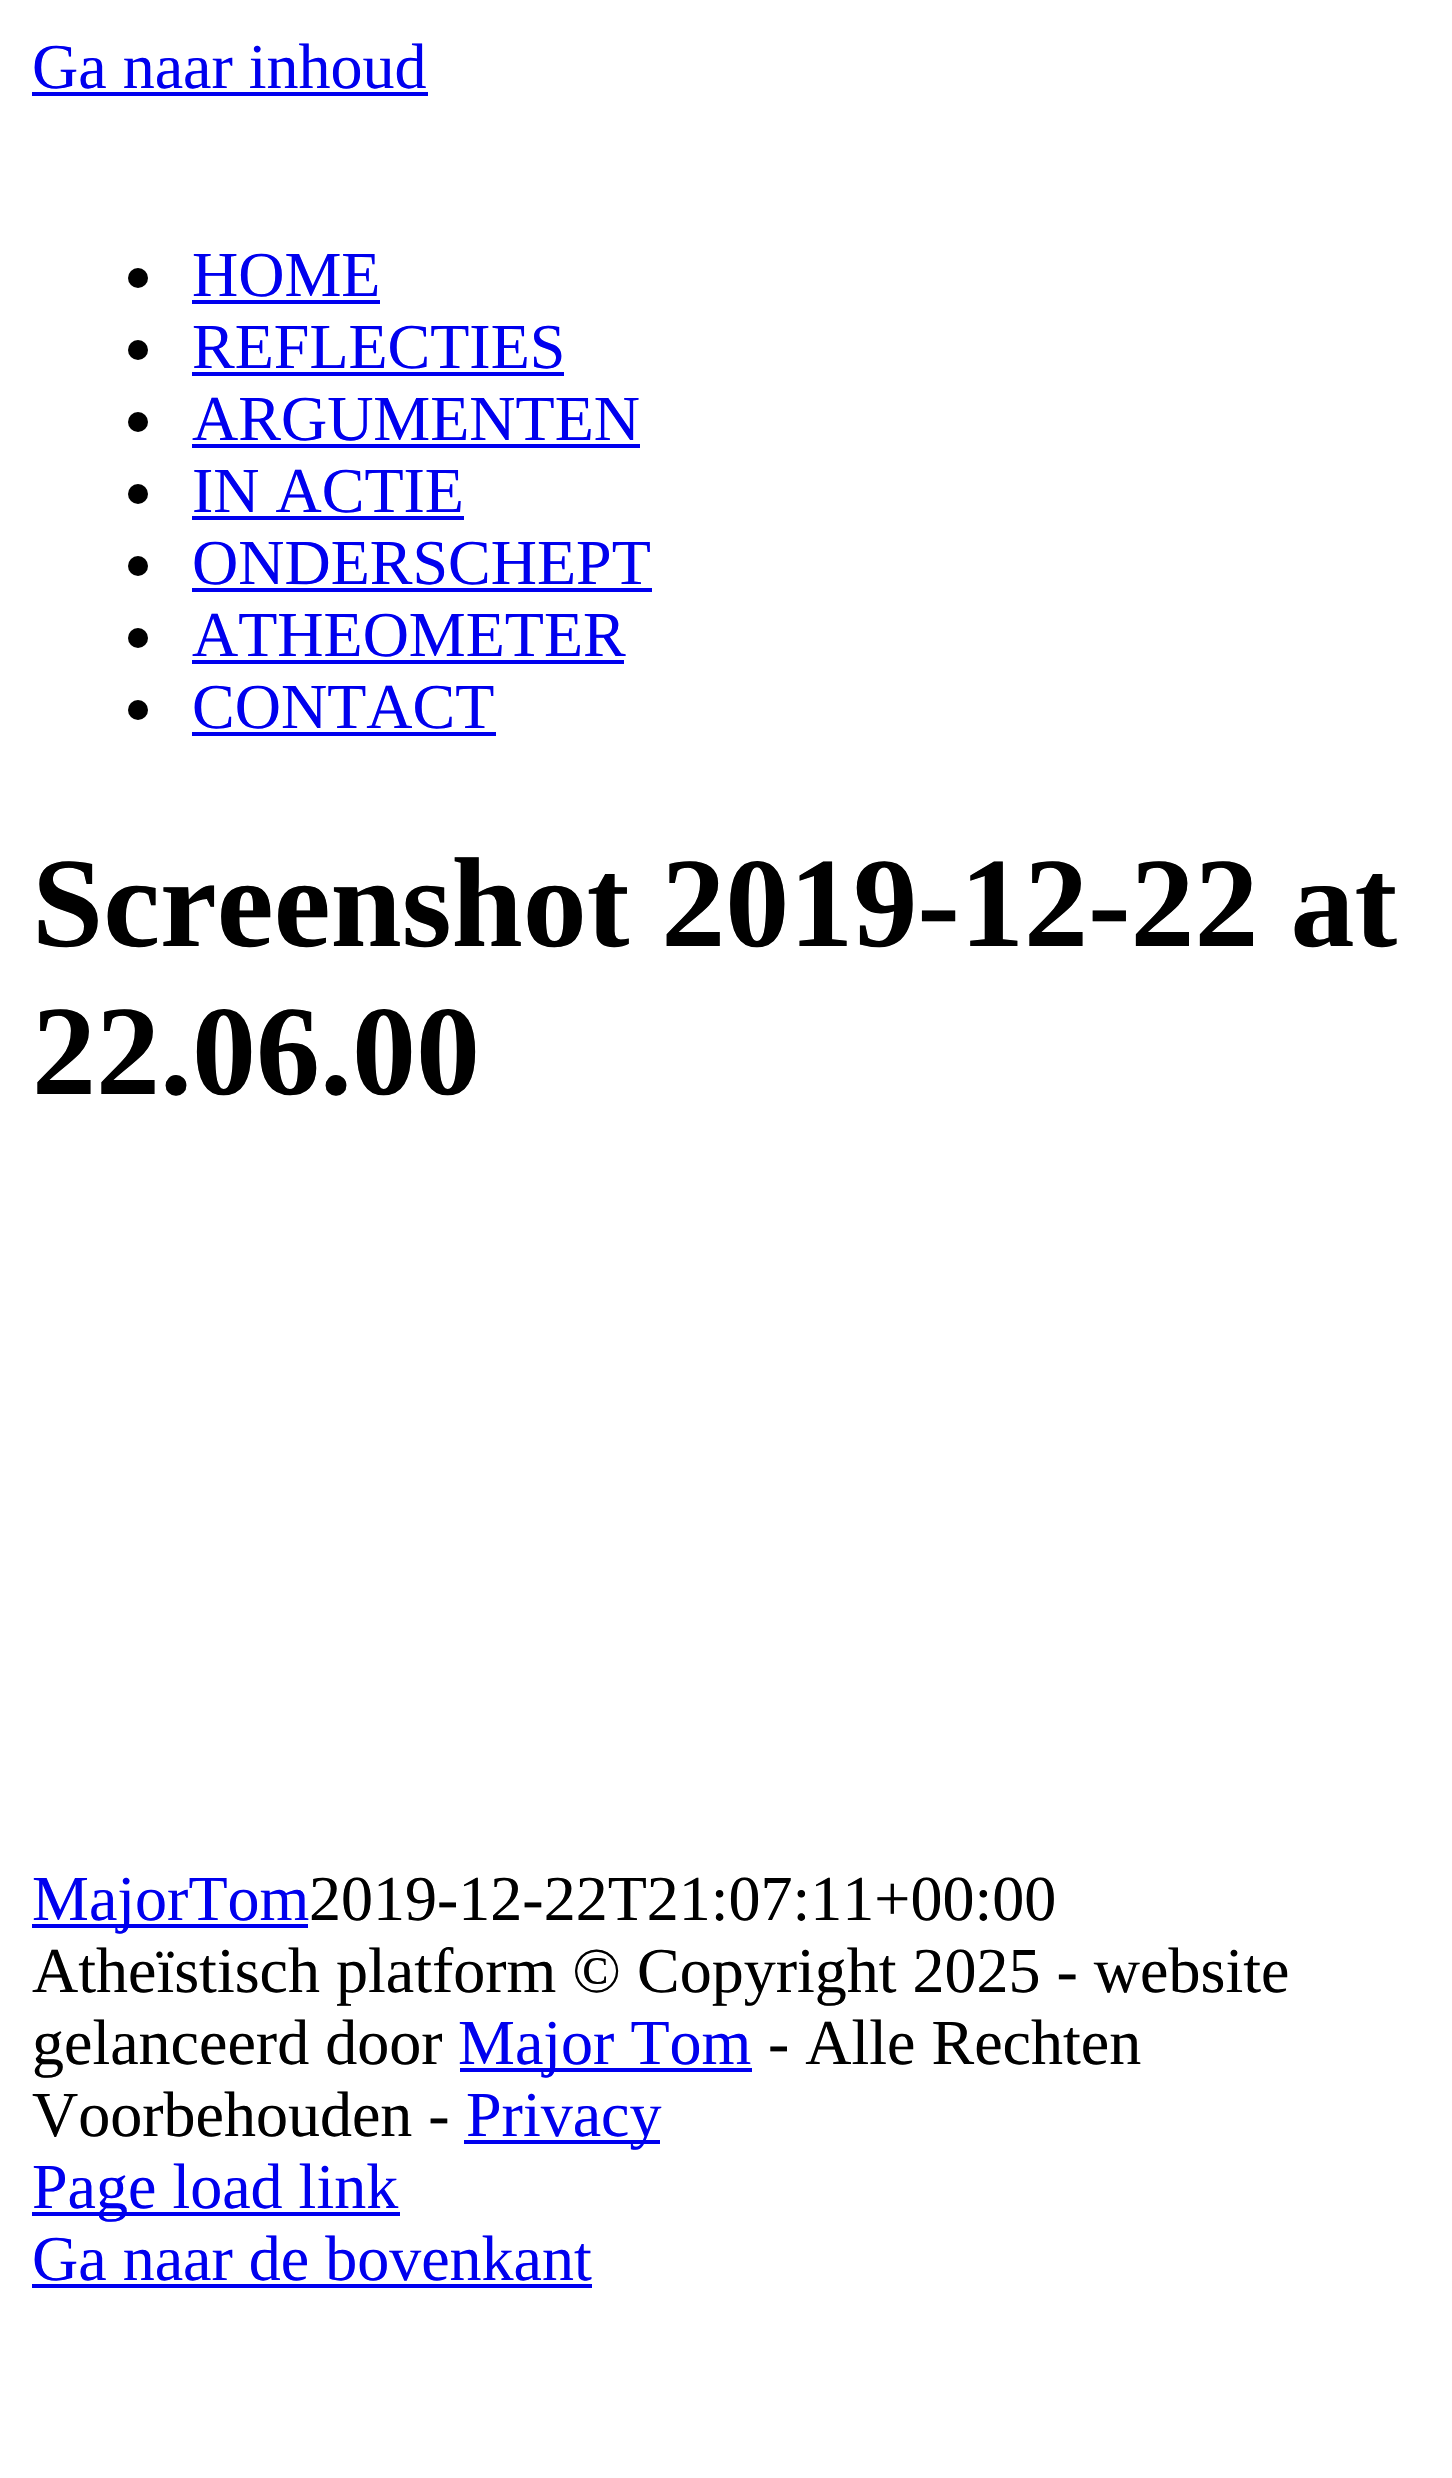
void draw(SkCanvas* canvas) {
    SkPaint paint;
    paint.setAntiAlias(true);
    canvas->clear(0xFFFFFFFF);
    SkFont font1(fontMgr->matchFamilyStyle("Liberation Serif", SkFontStyle::Normal()), 64);
    font1.setSubpixel(true);
    paint.setColor(0xFF0000EE);
    canvas->drawString("Ga naar inhoud", 32, 88, font1, paint);
    canvas->drawRect(SkRect::MakeXYWH(32, 92, 396, 4), paint);
    paint.setColor(0xFF000000);
    canvas->drawCircle(138, 278, 10, paint);
    paint.setColor(0xFF0000EE);
    canvas->drawString("HOME", 192, 296, font1, paint);
    canvas->drawRect(SkRect::MakeXYWH(192, 300, 188, 4), paint);
    paint.setColor(0xFF000000);
    canvas->drawCircle(138, 350, 10, paint);
    paint.setColor(0xFF0000EE);
    canvas->drawString("REFLECTIES", 192, 368, font1, paint);
    canvas->drawRect(SkRect::MakeXYWH(192, 372, 372, 4), paint);
    paint.setColor(0xFF000000);
    canvas->drawCircle(138, 422, 10, paint);
    paint.setColor(0xFF0000EE);
    canvas->drawString("ARGUMENTEN", 192, 440, font1, paint);
    canvas->drawRect(SkRect::MakeXYWH(192, 444, 448, 4), paint);
    paint.setColor(0xFF000000);
    canvas->drawCircle(138, 494, 10, paint);
    paint.setColor(0xFF0000EE);
    canvas->drawString("IN ACTIE", 192, 512, font1, paint);
    canvas->drawRect(SkRect::MakeXYWH(192, 516, 272, 4), paint);
    paint.setColor(0xFF000000);
    canvas->drawCircle(138, 566, 10, paint);
    paint.setColor(0xFF0000EE);
    canvas->drawString("ONDERSCHEPT", 192, 584, font1, paint);
    canvas->drawRect(SkRect::MakeXYWH(192, 588, 460, 4), paint);
    paint.setColor(0xFF000000);
    canvas->drawCircle(138, 638, 10, paint);
    paint.setColor(0xFF0000EE);
    canvas->drawString("ATHEOMETER", 192, 656, font1, paint);
    canvas->drawRect(SkRect::MakeXYWH(192, 660, 432, 4), paint);
    paint.setColor(0xFF000000);
    canvas->drawCircle(138, 710, 10, paint);
    paint.setColor(0xFF0000EE);
    canvas->drawString("CONTACT", 192, 728, font1, paint);
    canvas->drawRect(SkRect::MakeXYWH(192, 732, 304, 4), paint);
    SkFont font2(fontMgr->matchFamilyStyle("Liberation Serif", SkFontStyle::Bold()), 128);
    font2.setSubpixel(true);
    paint.setColor(0xFF000000);
    canvas->drawString("Screenshot 2019-12-22 at", 32, 946, font2, paint);
    canvas->drawString("22.06.00", 32, 1094, font2, paint);
    paint.setColor(0xFF0000EE);
    canvas->drawRect(SkRect::MakeXYWH(32, 1924, 276, 4), paint);
    canvas->drawString("MajorTom", 32, 1920, font1, paint);
    paint.setColor(0xFF000000);
    canvas->drawString("2019-12-22T21:07:11+00:00", 309, 1920, font1, paint);
    canvas->drawString("Atheïstisch platform © Copyright 2025 - website", 32, 1992, font1, paint);
    canvas->drawString("gelanceerd door", 32, 2064, font1, paint);
    paint.setColor(0xFF0000EE);
    canvas->drawRect(SkRect::MakeXYWH(460, 2068, 292, 4), paint);
    canvas->drawString("Major Tom", 458, 2064, font1, paint);
    paint.setColor(0xFF000000);
    canvas->drawString("- Alle Rechten", 768, 2064, font1, paint);
    canvas->drawString("Voorbehouden -", 32, 2136, font1, paint);
    paint.setColor(0xFF0000EE);
    canvas->drawRect(SkRect::MakeXYWH(464, 2140, 196, 4), paint);
    canvas->drawString("Privacy", 466, 2136, font1, paint);
    canvas->drawRect(SkRect::MakeXYWH(32, 2212, 368, 4), paint);
    canvas->drawString("Page load link", 32, 2208, font1, paint);
    canvas->drawString("Ga naar de bovenkant", 32, 2280, font1, paint);
    canvas->drawRect(SkRect::MakeXYWH(32, 2284, 560, 4), paint);
}
